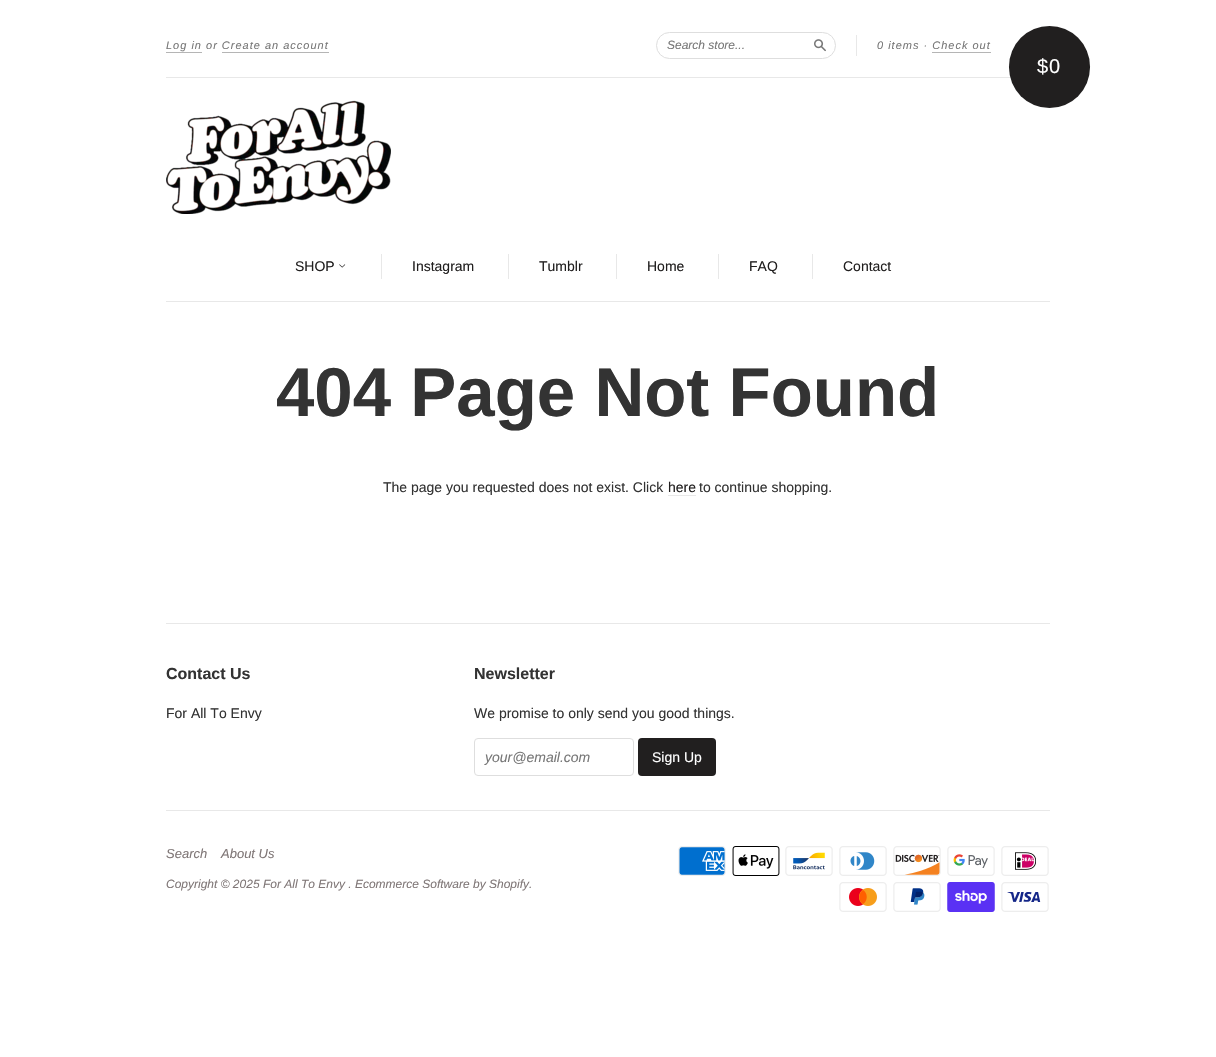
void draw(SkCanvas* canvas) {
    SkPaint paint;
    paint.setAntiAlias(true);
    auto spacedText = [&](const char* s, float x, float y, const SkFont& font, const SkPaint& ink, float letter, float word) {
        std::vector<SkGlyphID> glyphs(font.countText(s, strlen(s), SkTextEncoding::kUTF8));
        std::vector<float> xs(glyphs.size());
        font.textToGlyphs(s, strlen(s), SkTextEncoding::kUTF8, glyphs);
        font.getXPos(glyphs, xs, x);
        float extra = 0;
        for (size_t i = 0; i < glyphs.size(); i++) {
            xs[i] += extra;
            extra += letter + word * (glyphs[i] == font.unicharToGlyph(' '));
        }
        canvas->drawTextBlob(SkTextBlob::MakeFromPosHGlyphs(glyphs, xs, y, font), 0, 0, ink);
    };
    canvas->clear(0xFFFFFFFF);
    paint.setColor(0xFFE8E8E8);
    canvas->drawRect(SkRect::MakeXYWH(166, 301, 884, 1), paint);
    canvas->drawRect(SkRect::MakeXYWH(166, 77, 845, 1), paint);
    SkFont font1(fontMgr->matchFamilyStyle("Liberation Sans", SkFontStyle::Italic()), 11);
    font1.setSubpixel(true);
    paint.setColor(0xFF777777);
    spacedText("Log in or Create an account", 166, 49, font1, paint, 1, 0);
    paint.setColor(0xFFB5B5B5);
    canvas->drawRect(SkRect::MakeXYWH(166, 52, 36, 1), paint);
    canvas->drawRect(SkRect::MakeXYWH(222, 52, 107, 1), paint);
    paint.setStyle(SkPaint::kStroke_Style);
    paint.setStrokeWidth(1);
    paint.setColor(0xFFDEDEDE);
    canvas->drawRoundRect(SkRect::MakeXYWH(656.5f, 32.5f, 179, 26), 13, 13, paint);
    SkFont font2(fontMgr->matchFamilyStyle("Liberation Sans", SkFontStyle::Italic()), 12);
    font2.setSubpixel(true);
    paint.setStyle(SkPaint::kFill_Style);
    paint.setColor(0xFF777777);
    canvas->drawString("Search store...", 667, 49, font2, paint);
    canvas->drawImageRect(SkImages::DeferredFromEncodedData(SkData::MakeFromFileName("img1.png")), SkRect::MakeXYWH(814, 39, 12, 13), SkSamplingOptions());
    paint.setColor(0xFFE8E8E8);
    canvas->drawRect(SkRect::MakeXYWH(856, 35, 1, 21), paint);
    paint.setColor(0xFF777777);
    spacedText("0 items · Check out", 877, 49, font1, paint, 1, 0);
    paint.setColor(0xFFB5B5B5);
    canvas->drawRect(SkRect::MakeXYWH(932, 52, 59, 1), paint);
    paint.setColor(0xFF211F1F);
    canvas->drawRoundRect(SkRect::MakeXYWH(1009, 26, 81, 82), 40.5f, 40.5f, paint);
    SkFont font3(fontMgr->matchFamilyStyle("Liberation Sans", SkFontStyle::Normal()), 20);
    font3.setSubpixel(true);
    paint.setColor(0xFFFFFFFF);
    spacedText("$0", 1037, 73, font3, paint, 1, 0);
    canvas->drawImageRect(SkImages::DeferredFromEncodedData(SkData::MakeFromFileName("img2.png")), SkRect::MakeXYWH(166, 100, 225, 114), SkSamplingOptions());
    SkFont font4(fontMgr->matchFamilyStyle("Liberation Sans", SkFontStyle::Normal()), 14);
    font4.setSubpixel(true);
    paint.setColor(0xFF211F1F);
    canvas->drawString("SHOP", 295, 271, font4, paint);
    canvas->drawImageRect(SkImages::DeferredFromEncodedData(SkData::MakeFromFileName("img3.png")), SkRect::MakeXYWH(339, 264, 7, 4), SkSamplingOptions());
    paint.setColor(0xFFE8E8E8);
    canvas->drawRect(SkRect::MakeXYWH(381, 254, 1, 25), paint);
    paint.setColor(0xFF211F1F);
    canvas->drawString("Instagram", 412, 271, font4, paint);
    paint.setColor(0xFFE8E8E8);
    canvas->drawRect(SkRect::MakeXYWH(508, 254, 1, 25), paint);
    paint.setColor(0xFF211F1F);
    canvas->drawString("Tumblr", 539, 271, font4, paint);
    paint.setColor(0xFFE8E8E8);
    canvas->drawRect(SkRect::MakeXYWH(616, 254, 1, 25), paint);
    paint.setColor(0xFF211F1F);
    canvas->drawString("Home", 647, 271, font4, paint);
    paint.setColor(0xFFE8E8E8);
    canvas->drawRect(SkRect::MakeXYWH(718, 254, 1, 25), paint);
    paint.setColor(0xFF211F1F);
    canvas->drawString("FAQ", 749, 271, font4, paint);
    paint.setColor(0xFFE8E8E8);
    canvas->drawRect(SkRect::MakeXYWH(812, 254, 1, 25), paint);
    paint.setColor(0xFF211F1F);
    canvas->drawString("Contact", 843, 271, font4, paint);
    SkFont font5(fontMgr->matchFamilyStyle("Liberation Sans", SkFontStyle::Bold()), 69);
    font5.setSubpixel(true);
    paint.setColor(0xFF333333);
    canvas->drawString("404 Page Not Found", 276, 416, font5, paint);
    canvas->drawString("The page you requested does not exist. Click", 383, 492, font4, paint);
    paint.setColor(0xFF211F1F);
    canvas->drawString("here", 668, 492, font4, paint);
    paint.setColor(0xFFE8E8E8);
    canvas->drawRect(SkRect::MakeXYWH(668, 495, 28, 1), paint);
    paint.setColor(0xFF333333);
    canvas->drawString("to continue shopping.", 699, 492, font4, paint);
    paint.setColor(0xFFE8E8E8);
    canvas->drawRect(SkRect::MakeXYWH(166, 623, 884, 1), paint);
    SkFont font6(fontMgr->matchFamilyStyle("Liberation Sans", SkFontStyle::Bold()), 16);
    font6.setSubpixel(true);
    paint.setColor(0xFF333333);
    canvas->drawString("Contact Us", 166, 679, font6, paint);
    canvas->drawString("For All To Envy", 166, 718, font4, paint);
    canvas->drawString("Newsletter", 474, 679, font6, paint);
    canvas->drawString("We promise to only send you good things.", 474, 718, font4, paint);
    paint.setStyle(SkPaint::kStroke_Style);
    paint.setColor(0xFFDEDEDE);
    canvas->drawRoundRect(SkRect::MakeXYWH(474.5f, 738.5f, 159, 37), 3.5f, 3.5f, paint);
    SkFont font7(fontMgr->matchFamilyStyle("Liberation Sans", SkFontStyle::Italic()), 14);
    font7.setSubpixel(true);
    paint.setStyle(SkPaint::kFill_Style);
    paint.setColor(0xFF777777);
    canvas->drawString("your@email.com", 485, 762, font7, paint);
    paint.setColor(0xFF211F1F);
    canvas->drawRoundRect(SkRect::MakeXYWH(638, 738, 78, 38), 4, 4, paint);
    paint.setColor(0xFFFFFFFF);
    canvas->drawString("Sign Up", 652, 762, font4, paint);
    paint.setColor(0xFFE8E8E8);
    canvas->drawRect(SkRect::MakeXYWH(166, 810, 884, 1), paint);
    SkFont font8(fontMgr->matchFamilyStyle("Liberation Sans", SkFontStyle::Italic()), 13);
    font8.setSubpixel(true);
    paint.setColor(0xFF807777);
    canvas->drawString("Search", 166, 858, font8, paint);
    canvas->drawString("About Us", 221, 858, font8, paint);
    canvas->drawString("Copyright © 2025 For All To Envy . Ecommerce Software by Shopify.", 166, 888, font2, paint);
    canvas->drawImageRect(SkImages::DeferredFromEncodedData(SkData::MakeFromFileName("img4.png")), SkRect::MakeXYWH(678, 846, 48, 30), SkSamplingOptions());
    canvas->drawImageRect(SkImages::DeferredFromEncodedData(SkData::MakeFromFileName("img5.png")), SkRect::MakeXYWH(732, 846, 48, 30), SkSamplingOptions());
    canvas->drawImageRect(SkImages::DeferredFromEncodedData(SkData::MakeFromFileName("img6.png")), SkRect::MakeXYWH(785, 846, 48, 30), SkSamplingOptions());
    canvas->drawImageRect(SkImages::DeferredFromEncodedData(SkData::MakeFromFileName("img7.png")), SkRect::MakeXYWH(839, 846, 48, 30), SkSamplingOptions());
    canvas->drawImageRect(SkImages::DeferredFromEncodedData(SkData::MakeFromFileName("img8.png")), SkRect::MakeXYWH(893, 846, 48, 30), SkSamplingOptions());
    canvas->drawImageRect(SkImages::DeferredFromEncodedData(SkData::MakeFromFileName("img9.png")), SkRect::MakeXYWH(947, 846, 48, 30), SkSamplingOptions());
    canvas->drawImageRect(SkImages::DeferredFromEncodedData(SkData::MakeFromFileName("img10.png")), SkRect::MakeXYWH(1001, 846, 48, 30), SkSamplingOptions());
    canvas->drawImageRect(SkImages::DeferredFromEncodedData(SkData::MakeFromFileName("img11.png")), SkRect::MakeXYWH(839, 882, 48, 30), SkSamplingOptions());
    canvas->drawImageRect(SkImages::DeferredFromEncodedData(SkData::MakeFromFileName("img12.png")), SkRect::MakeXYWH(893, 882, 48, 30), SkSamplingOptions());
    canvas->drawImageRect(SkImages::DeferredFromEncodedData(SkData::MakeFromFileName("img13.png")), SkRect::MakeXYWH(947, 882, 48, 30), SkSamplingOptions());
    canvas->drawImageRect(SkImages::DeferredFromEncodedData(SkData::MakeFromFileName("img14.png")), SkRect::MakeXYWH(1001, 882, 48, 30), SkSamplingOptions());
}
